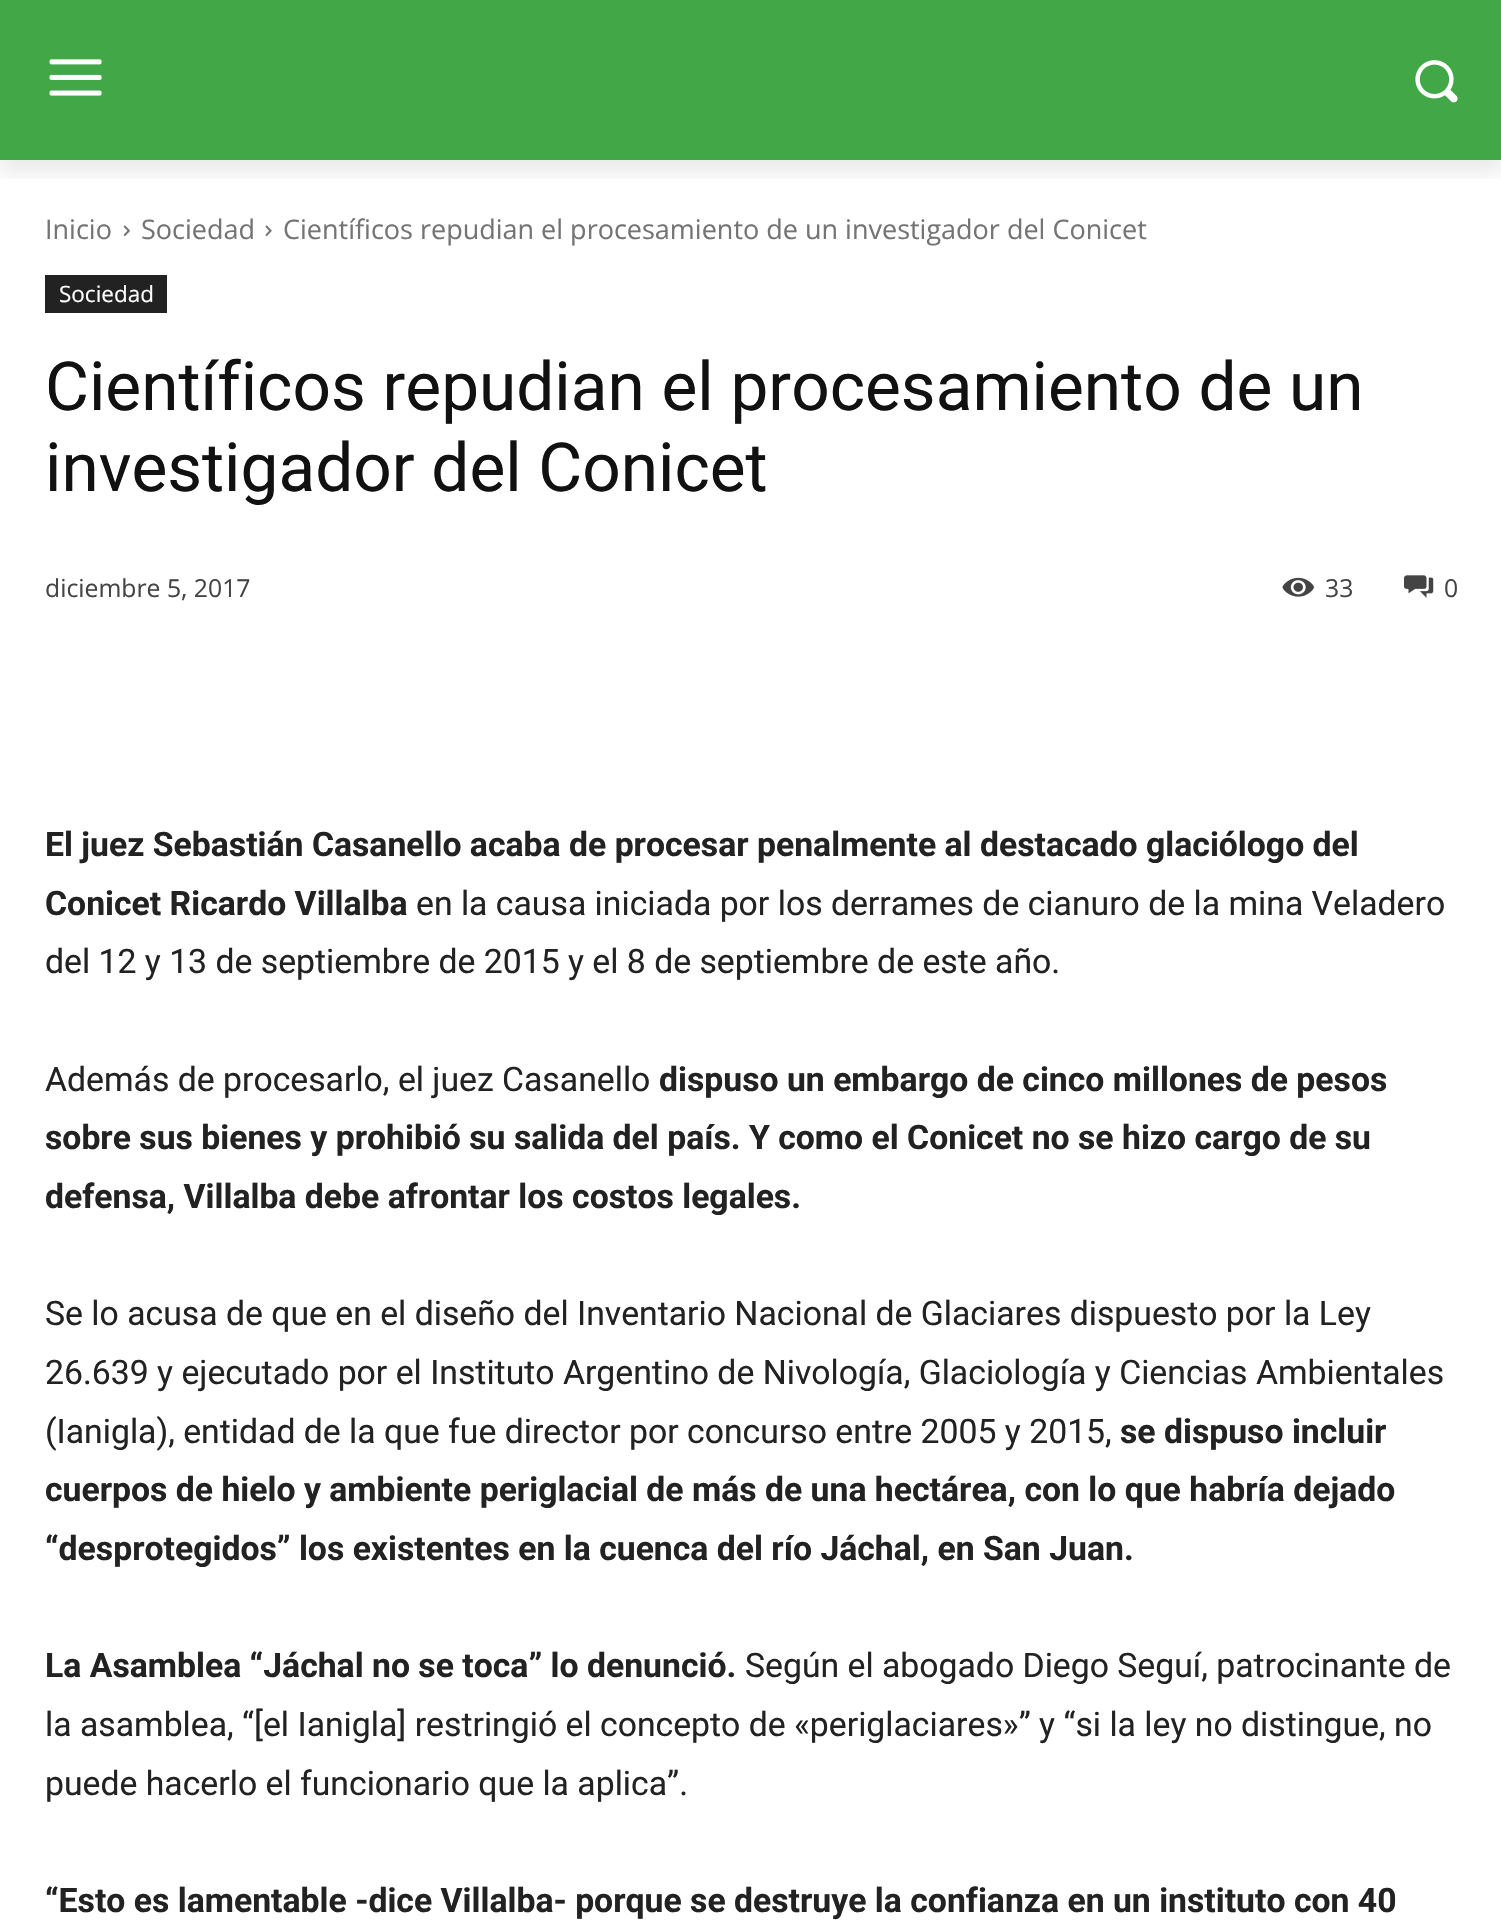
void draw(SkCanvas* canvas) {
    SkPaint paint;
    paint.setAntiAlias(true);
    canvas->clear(0xFFFFFFFF);
    paint.setColor(0xFF41A747);
    canvas->drawRect(SkRect::MakeXYWH(0, 0, 1501, 160), paint);
    canvas->drawImageRect(SkImages::DeferredFromEncodedData(SkData::MakeFromFileName("img1.png")), SkRect::MakeXYWH(49, 59, 53, 37), SkSamplingOptions());
    canvas->drawImageRect(SkImages::DeferredFromEncodedData(SkData::MakeFromFileName("img2.png")), SkRect::MakeXYWH(1415, 60, 43, 43), SkSamplingOptions());
    canvas->save();
    canvas->clipRect(SkRect::MakeXYWH(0, 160, 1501, 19));
    paint.setColor(0x14000000);
    paint.setMaskFilter(SkMaskFilter::MakeBlur(kNormal_SkBlurStyle, 9));
    canvas->drawRect(SkRect::MakeXYWH(0, 14, 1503, 159), paint);
    paint.setMaskFilter(nullptr);
    canvas->restore();
    SkFont font1(fontMgr->matchFamilyStyle("Open Sans", SkFontStyle::Normal()), 27);
    font1.setSubpixel(true);
    paint.setColor(0xFF747474);
    canvas->drawString("Inicio", 45, 239, font1, paint);
    canvas->drawImageRect(SkImages::DeferredFromEncodedData(SkData::MakeFromFileName("img3.png")), SkRect::MakeXYWH(123, 225, 7, 11), SkSamplingOptions());
    canvas->drawString("Sociedad", 141, 239, font1, paint);
    canvas->drawImageRect(SkImages::DeferredFromEncodedData(SkData::MakeFromFileName("img4.png")), SkRect::MakeXYWH(265, 225, 7, 11), SkSamplingOptions());
    canvas->drawString("Científicos repudian el procesamiento de un investigador del Conicet", 283, 239, font1, paint);
    paint.setColor(0xFF222222);
    canvas->drawRect(SkRect::MakeXYWH(45, 275, 122, 38), paint);
    SkFont font2(fontMgr->matchFamilyStyle("Open Sans", SkFontStyle::Normal()), 22.5f);
    font2.setSubpixel(true);
    paint.setColor(0xFFFFFFFF);
    canvas->drawString("Sociedad", 59, 302, font2, paint);
    SkFont font3(fontMgr->matchFamilyStyle("Roboto", SkFontStyle::Normal()), 67.5f);
    font3.setSubpixel(true);
    paint.setColor(0xFF111111);
    canvas->drawString("Científicos repudian el procesamiento de un", 45, 410, font3, paint);
    canvas->drawString("investigador del Conicet", 45, 491, font3, paint);
    SkFont font4(fontMgr->matchFamilyStyle("Open Sans", SkFontStyle::Normal()), 24.75f);
    font4.setSubpixel(true);
    paint.setColor(0xFF444444);
    canvas->drawString("diciembre 5, 2017", 45, 597, font4, paint);
    canvas->drawImageRect(SkImages::DeferredFromEncodedData(SkData::MakeFromFileName("img5.png")), SkRect::MakeXYWH(1282, 577, 32, 20), SkSamplingOptions());
    canvas->drawString("33", 1325, 597, font4, paint);
    canvas->drawImageRect(SkImages::DeferredFromEncodedData(SkData::MakeFromFileName("img6.png")), SkRect::MakeXYWH(1404, 575, 30, 23), SkSamplingOptions());
    canvas->drawString("0", 1444, 597, font4, paint);
    SkFont font5(fontMgr->matchFamilyStyle("Roboto", SkFontStyle::Bold()), 33.75f);
    font5.setSubpixel(true);
    paint.setColor(0xFF222222);
    canvas->drawString("El juez Sebastián Casanello acaba de procesar penalmente al destacado glaciólogo del", 45, 856, font5, paint);
    canvas->drawString("Conicet Ricardo Villalba", 45, 915, font5, paint);
    SkFont font6(fontMgr->matchFamilyStyle("Roboto", SkFontStyle::Normal()), 33.75f);
    font6.setSubpixel(true);
    canvas->drawString("en la causa iniciada por los derrames de cianuro de la mina Veladero", 416, 915, font6, paint);
    canvas->drawString("del 12 y 13 de septiembre de 2015 y el 8 de septiembre de este año.", 45, 973, font6, paint);
    canvas->drawString("Además de procesarlo, el juez Casanello", 45, 1091, font6, paint);
    canvas->drawString("dispuso un embargo de cinco millones de pesos", 659, 1091, font5, paint);
    canvas->drawString("sobre sus bienes y prohibió su salida del país. Y como el Conicet no se hizo cargo de su", 45, 1149, font5, paint);
    canvas->drawString("defensa, Villalba debe afrontar los costos legales.", 45, 1208, font5, paint);
    canvas->drawString("Se lo acusa de que en el diseño del Inventario Nacional de Glaciares dispuesto por la Ley", 45, 1325, font6, paint);
    canvas->drawString("26.639 y ejecutado por el Instituto Argentino de Nivología, Glaciología y Ciencias Ambientales", 45, 1384, font6, paint);
    canvas->drawString("(Ianigla), entidad de la que fue director por concurso entre 2005 y 2015,", 45, 1443, font6, paint);
    canvas->drawString("se dispuso incluir", 1120, 1443, font5, paint);
    canvas->drawString("cuerpos de hielo y ambiente periglacial de más de una hectárea, con lo que habría dejado", 45, 1501, font5, paint);
    canvas->drawString("“desprotegidos” los existentes en la cuenca del río Jáchal, en San Juan.", 45, 1560, font5, paint);
    canvas->drawString("La Asamblea “Jáchal no se toca” lo denunció.", 45, 1677, font5, paint);
    canvas->drawString("Según el abogado Diego Seguí, patrocinante de", 745, 1677, font6, paint);
    canvas->drawString("la asamblea, “[el Ianigla] restringió el concepto de «periglaciares»” y “si la ley no distingue, no", 45, 1736, font6, paint);
    canvas->drawString("puede hacerlo el funcionario que la aplica”.", 45, 1795, font6, paint);
    canvas->drawString("“Esto es lamentable -dice Villalba- porque se destruye la confianza en un instituto con 40", 45, 1912, font5, paint);
}
